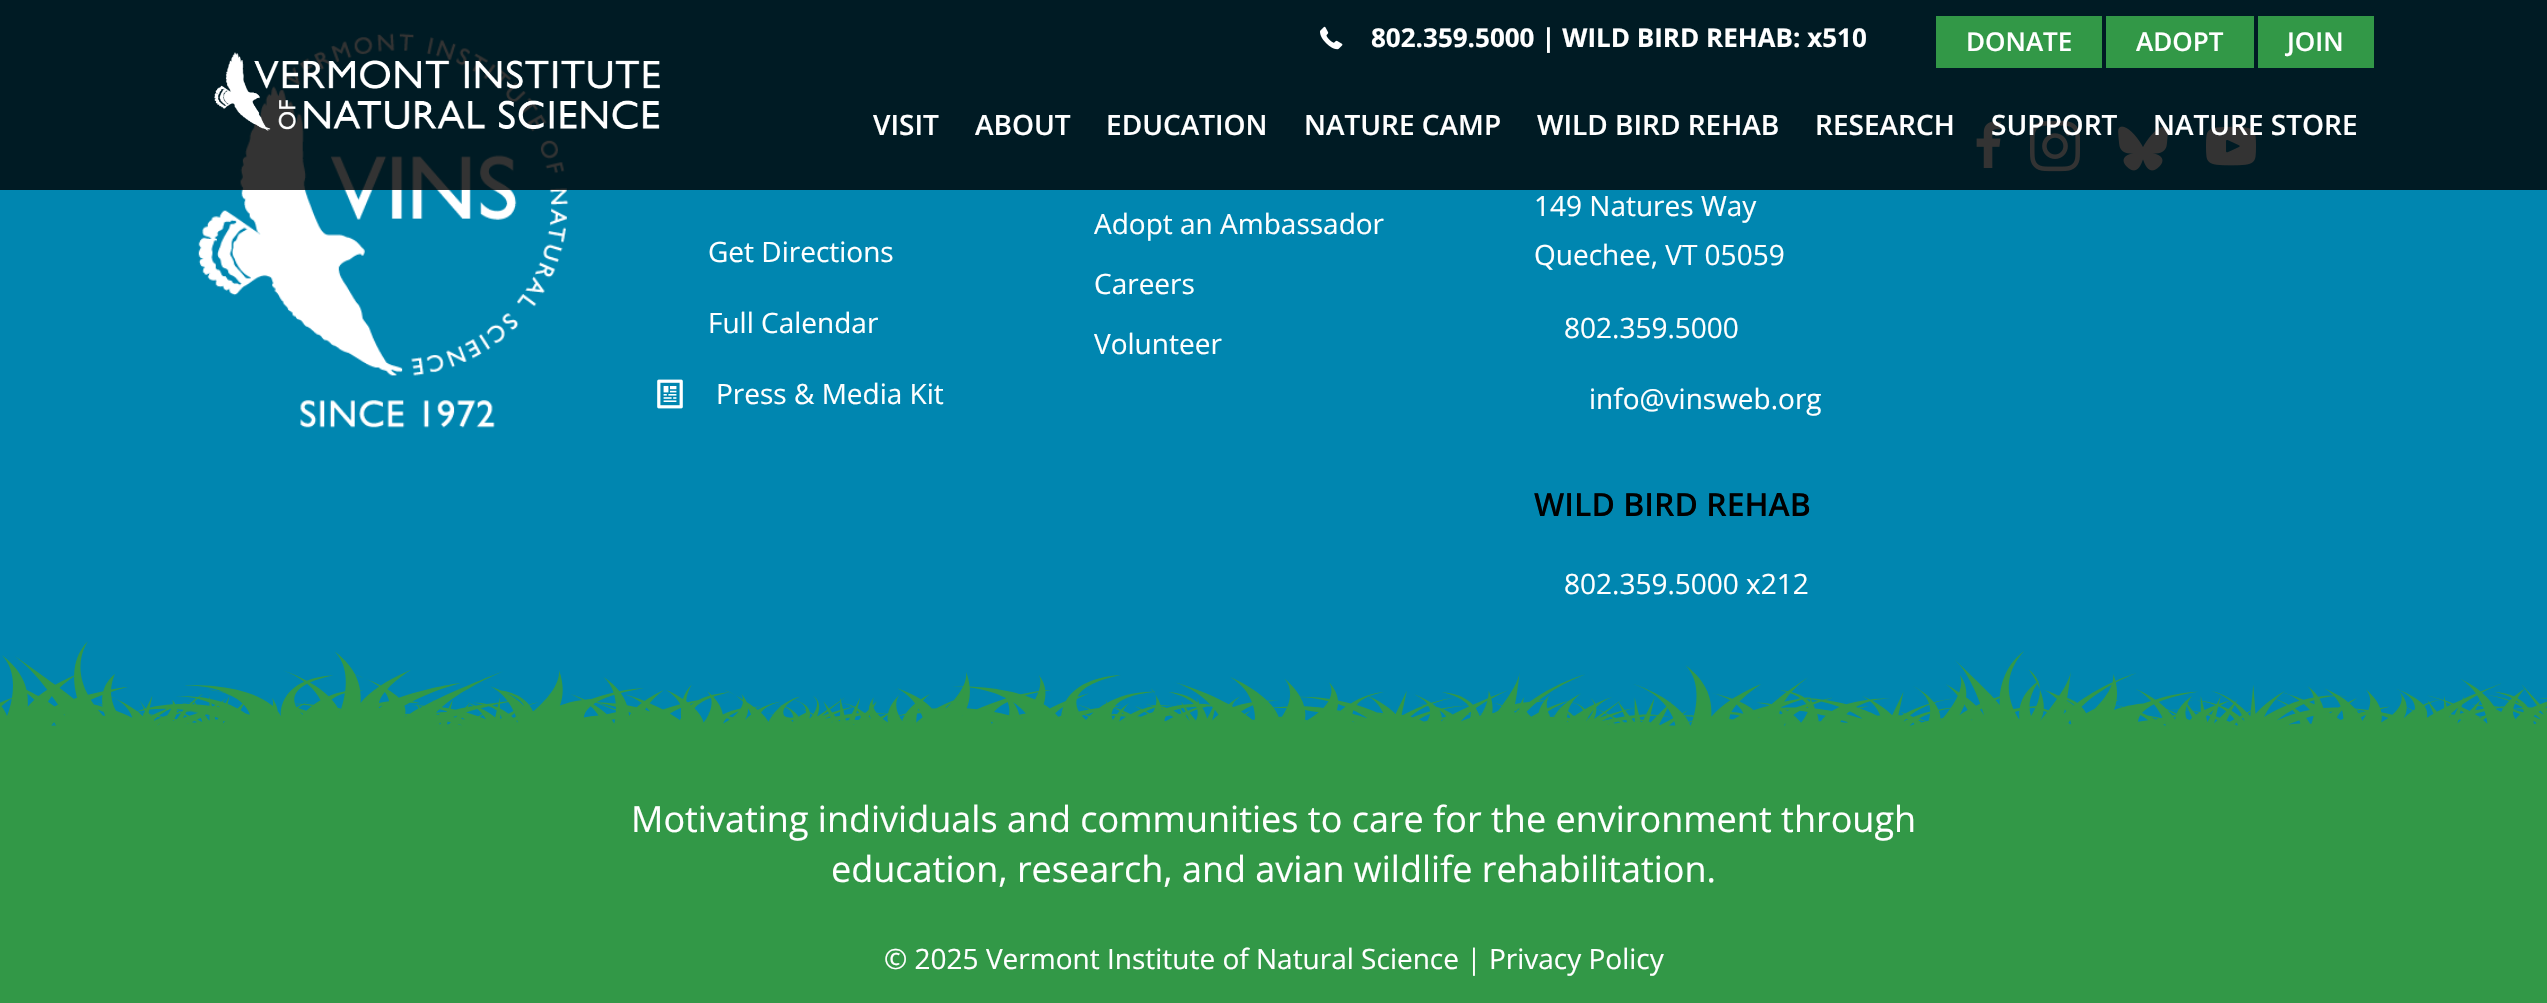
void draw(SkCanvas* canvas) {
    SkPaint paint;
    paint.setAntiAlias(true);
    canvas->clear(0xFF0086B0);
    canvas->drawImageRect(SkImages::DeferredFromEncodedData(SkData::MakeFromFileName("img3.png")), SkRect::MakeXYWH(198, 33, 371, 395), SkSamplingOptions());
    canvas->drawImageRect(SkImages::DeferredFromEncodedData(SkData::MakeFromFileName("img4.png")), SkRect::MakeXYWH(1976, 121, 25, 47), SkSamplingOptions());
    canvas->drawImageRect(SkImages::DeferredFromEncodedData(SkData::MakeFromFileName("img5.png")), SkRect::MakeXYWH(2030, 121, 50, 51), SkSamplingOptions());
    canvas->drawImageRect(SkImages::DeferredFromEncodedData(SkData::MakeFromFileName("img6.png")), SkRect::MakeXYWH(2118, 126, 50, 45), SkSamplingOptions());
    canvas->drawImageRect(SkImages::DeferredFromEncodedData(SkData::MakeFromFileName("img7.png")), SkRect::MakeXYWH(2206, 126, 50, 40), SkSamplingOptions());
    paint.setColor(0xCC000000);
    canvas->drawRect(SkRect::MakeXYWH(0, 0, 2547, 190), paint);
    canvas->drawImageRect(SkImages::DeferredFromEncodedData(SkData::MakeFromFileName("img1.png")), SkRect::MakeXYWH(214, 52, 446, 79), SkSamplingOptions());
    canvas->drawImageRect(SkImages::DeferredFromEncodedData(SkData::MakeFromFileName("img2.png")), SkRect::MakeXYWH(1320, 26, 23, 24), SkSamplingOptions());
    SkFont font1(fontMgr->matchFamilyStyle("Open Sans", SkFontStyle::Bold()), 26);
    font1.setSubpixel(true);
    paint.setColor(0xFFFFFFFF);
    canvas->drawString("802.359.5000 | WILD BIRD REHAB: x510", 1371, 47, font1, paint);
    paint.setColor(0xFF329847);
    canvas->drawRect(SkRect::MakeXYWH(1936, 16, 166, 52), paint);
    SkFont font2(fontMgr->matchFamilyStyle("Open Sans", SkFontStyle(600, SkFontStyle::kNormal_Width, SkFontStyle::kUpright_Slant)), 26);
    font2.setSubpixel(true);
    paint.setColor(0xFFFFFFFF);
    canvas->drawString("DONATE", 1966, 51, font2, paint);
    paint.setColor(0xFF329847);
    canvas->drawRect(SkRect::MakeXYWH(2106, 16, 148, 52), paint);
    paint.setColor(0xFFFFFFFF);
    canvas->drawString("ADOPT", 2136, 51, font2, paint);
    paint.setColor(0xFF329847);
    canvas->drawRect(SkRect::MakeXYWH(2258, 16, 116, 52), paint);
    paint.setColor(0xFFFFFFFF);
    canvas->drawString("JOIN", 2287, 51, font2, paint);
    SkFont font3(fontMgr->matchFamilyStyle("Open Sans", SkFontStyle(600, SkFontStyle::kNormal_Width, SkFontStyle::kUpright_Slant)), 28);
    font3.setSubpixel(true);
    canvas->drawString("VISIT", 873, 135, font3, paint);
    canvas->drawString("ABOUT", 975, 135, font3, paint);
    canvas->drawString("EDUCATION", 1106, 135, font3, paint);
    canvas->drawString("NATURE CAMP", 1304, 135, font3, paint);
    canvas->drawString("WILD BIRD REHAB", 1537, 135, font3, paint);
    canvas->drawString("RESEARCH", 1815, 135, font3, paint);
    canvas->drawString("SUPPORT", 1991, 135, font3, paint);
    canvas->drawString("NATURE STORE", 2153, 135, font3, paint);
    SkFont font4(fontMgr->matchFamilyStyle("Open Sans", SkFontStyle::Normal()), 28);
    font4.setSubpixel(true);
    canvas->drawString("Get Directions", 708, 262, font4, paint);
    canvas->drawString("Full Calendar", 708, 333, font4, paint);
    canvas->drawImageRect(SkImages::DeferredFromEncodedData(SkData::MakeFromFileName("img8.png")), SkRect::MakeXYWH(657, 379, 26, 30), SkSamplingOptions());
    canvas->drawString("Press & Media Kit", 716, 404, font4, paint);
    canvas->drawString("Adopt an Ambassador", 1094, 234, font4, paint);
    canvas->drawString("Careers", 1094, 294, font4, paint);
    canvas->drawString("Volunteer", 1094, 354, font4, paint);
    canvas->drawString("149 Natures Way", 1534, 216, font4, paint);
    canvas->drawString("Quechee, VT 05059", 1534, 265, font4, paint);
    canvas->drawString("802.359.5000", 1564, 338, font4, paint);
    canvas->drawString("info@vinsweb.org", 1589, 409, font4, paint);
    SkFont font5(fontMgr->matchFamilyStyle("Open Sans", SkFontStyle(600, SkFontStyle::kNormal_Width, SkFontStyle::kUpright_Slant)), 32);
    font5.setSubpixel(true);
    paint.setColor(0xFF000000);
    canvas->drawString("WILD BIRD REHAB", 1534, 516, font5, paint);
    paint.setColor(0xFFFFFFFF);
    canvas->drawString("802.359.5000 x212", 1564, 594, font4, paint);
    canvas->drawImageRect(SkImages::DeferredFromEncodedData(SkData::MakeFromFileName("img9.png")), SkRect::MakeXYWH(0, 641, 2547, 87), SkSamplingOptions());
    paint.setColor(0xFF329847);
    canvas->drawRect(SkRect::MakeXYWH(0, 728, 2547, 275), paint);
    SkFont font6(fontMgr->matchFamilyStyle("Open Sans", SkFontStyle::Normal()), 36);
    font6.setSubpixel(true);
    paint.setColor(0xFFFFFFFF);
    canvas->drawString("Motivating individuals and communities to care for the environment through", 631, 832, font6, paint);
    canvas->drawString("education, research, and avian wildlife rehabilitation.", 831, 882, font6, paint);
    canvas->drawString("© 2025 Vermont Institute of Natural Science | Privacy Policy", 884, 969, font4, paint);
}
